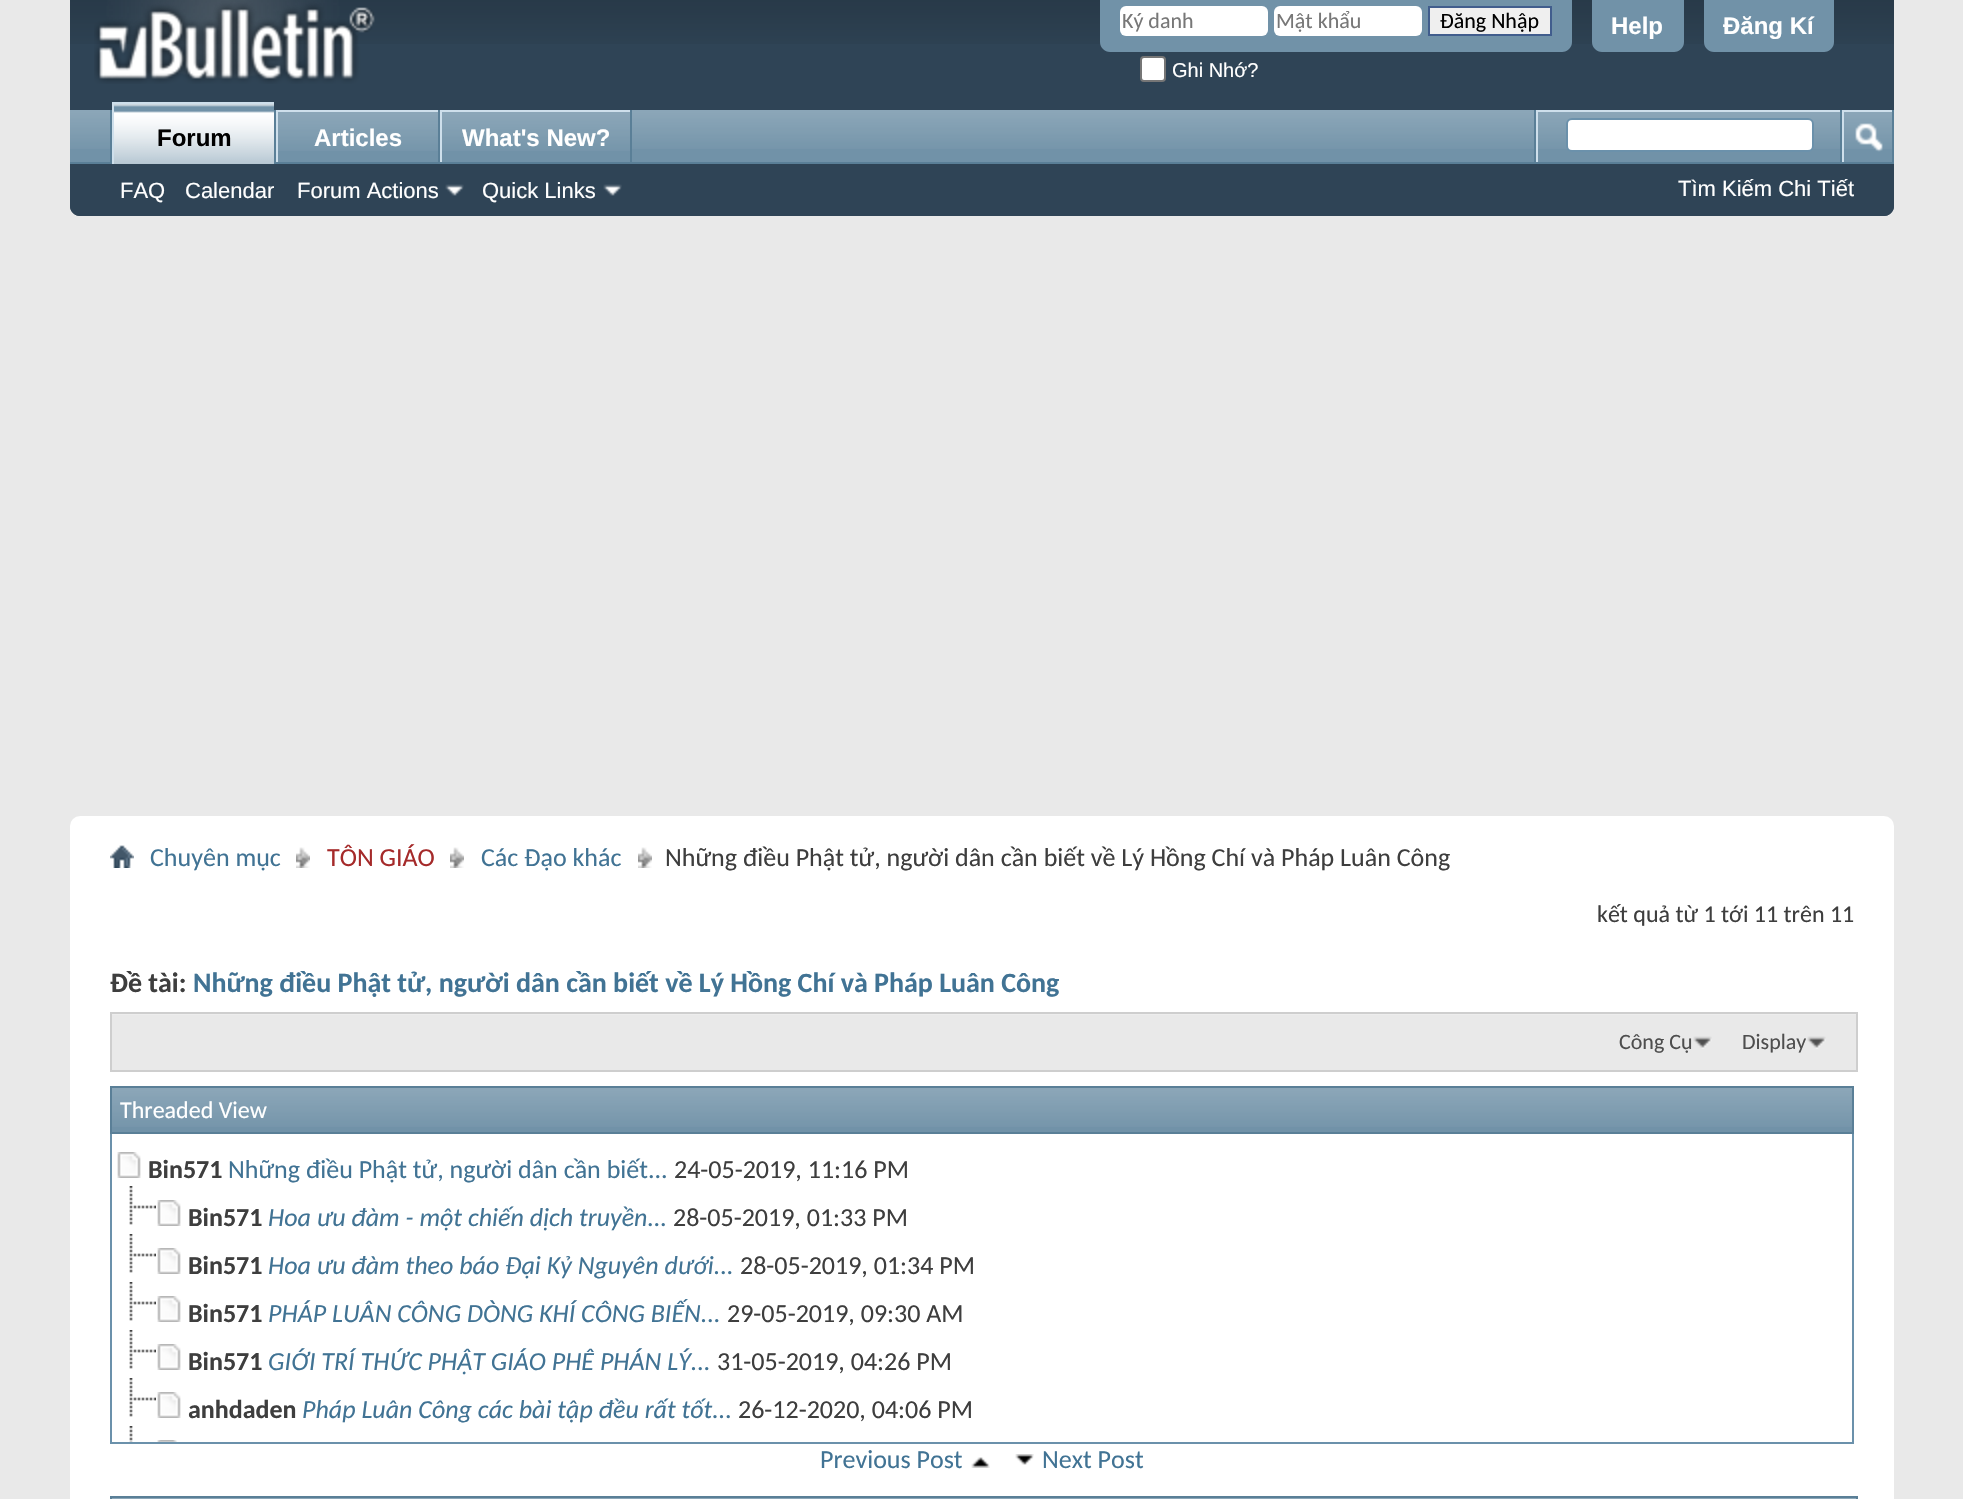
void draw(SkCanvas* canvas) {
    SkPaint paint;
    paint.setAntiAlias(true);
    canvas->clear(0xFFE9E9E9);
    paint.setColor(0xFF2F4456);
    canvas->drawPath(SkPathBuilder().moveTo(70, 0).lineTo(1894, 0).lineTo(1894, 206).cubicTo(1894, 211.5f, 1889.5f, 216, 1884, 216).lineTo(80, 216).cubicTo(74.5f, 216, 70, 211.5f, 70, 206).close().detach(), paint);
    canvas->drawImageRect(SkImages::DeferredFromEncodedData(SkData::MakeFromFileName("img1.png")), SkRect::MakeXYWH(70, 0, 1824, 44), SkSamplingOptions());
    canvas->drawImageRect(SkImages::DeferredFromEncodedData(SkData::MakeFromFileName("img2.png")), SkRect::MakeXYWH(94, 0, 281, 84), SkSamplingOptions());
    paint.setColor(0xFF7192A8);
    canvas->drawPath(SkPathBuilder().moveTo(1100, 0).lineTo(1572, 0).lineTo(1572, 42).cubicTo(1572, 47.5f, 1567.5f, 52, 1562, 52).lineTo(1110, 52).cubicTo(1104.5f, 52, 1100, 47.5f, 1100, 42).close().detach(), paint);
    paint.setColor(0xFFFFFFFF);
    canvas->drawRoundRect(SkRect::MakeXYWH(1120, 6, 148, 30), 6, 6, paint);
    SkFont font1(fontMgr->matchFamilyStyle("Carlito", SkFontStyle::Normal()), 22);
    font1.setSubpixel(true);
    paint.setColor(0xFF777777);
    canvas->drawString("Ký danh", 1122, 28, font1, paint);
    paint.setColor(0xFFFFFFFF);
    canvas->drawRoundRect(SkRect::MakeXYWH(1274, 6, 148, 30), 6, 6, paint);
    paint.setColor(0xFF777777);
    canvas->drawString("Mật khẩu", 1276, 28, font1, paint);
    paint.setColor(0xFFEFEFEF);
    canvas->drawRect(SkRect::MakeXYWH(1429, 7, 122, 28), paint);
    paint.setStyle(SkPaint::kStroke_Style);
    paint.setStrokeWidth(2);
    paint.setColor(0xFF415D8D);
    canvas->drawRect(SkRect::MakeXYWH(1429, 7, 122, 28), paint);
    paint.setStyle(SkPaint::kFill_Style);
    paint.setColor(0xFF000000);
    canvas->drawString("Đăng Nhập", 1440, 28, font1, paint);
    paint.setColor(0xFFFFFFFF);
    canvas->drawRoundRect(SkRect::MakeXYWH(1141, 57, 24, 24), 3, 3, paint);
    paint.setStyle(SkPaint::kStroke_Style);
    paint.setColor(0xFF767676);
    canvas->drawRoundRect(SkRect::MakeXYWH(1141, 57, 24, 24), 3, 3, paint);
    SkFont font2(fontMgr->matchFamilyStyle("Liberation Sans", SkFontStyle::Normal()), 20);
    font2.setSubpixel(true);
    paint.setStyle(SkPaint::kFill_Style);
    paint.setColor(0xFFFFFFFF);
    canvas->drawString("Ghi Nhớ?", 1172, 77, font2, paint);
    paint.setColor(0xFF7192A8);
    canvas->drawPath(SkPathBuilder().moveTo(1592, 0).lineTo(1684, 0).lineTo(1684, 42).cubicTo(1684, 47.5f, 1679.5f, 52, 1674, 52).lineTo(1602, 52).cubicTo(1596.5f, 52, 1592, 47.5f, 1592, 42).close().detach(), paint);
    SkFont font3(fontMgr->matchFamilyStyle("Liberation Sans", SkFontStyle::Bold()), 24);
    font3.setSubpixel(true);
    paint.setColor(0xFFFFFFFF);
    canvas->drawString("Help", 1611, 34, font3, paint);
    paint.setColor(0xFF7192A8);
    canvas->drawPath(SkPathBuilder().moveTo(1704, 0).lineTo(1834, 0).lineTo(1834, 42).cubicTo(1834, 47.5f, 1829.5f, 52, 1824, 52).lineTo(1714, 52).cubicTo(1708.5f, 52, 1704, 47.5f, 1704, 42).close().detach(), paint);
    paint.setColor(0xFFFFFFFF);
    canvas->drawString("Đăng Kí", 1723, 34, font3, paint);
    paint.setColor(0xFF2F4456);
    canvas->drawPath(SkPathBuilder().moveTo(70, 110).lineTo(1894, 110).lineTo(1894, 206).cubicTo(1894, 211.5f, 1889.5f, 216, 1884, 216).lineTo(80, 216).cubicTo(74.5f, 216, 70, 211.5f, 70, 206).close().detach(), paint);
    paint.setColor(0xFF7192A8);
    canvas->drawRect(SkRect::MakeXYWH(70, 110, 1822, 52), paint);
    canvas->drawImageRect(SkImages::DeferredFromEncodedData(SkData::MakeFromFileName("img3.png")), SkRect::MakeXYWH(70, 110, 1822, 39), SkSamplingOptions());
    paint.setColor(0xFF5A7F97);
    canvas->drawRect(SkRect::MakeXYWH(274, 110, 2, 52), paint);
    canvas->drawRect(SkRect::MakeXYWH(110, 110, 2, 52), paint);
    canvas->drawRect(SkRect::MakeXYWH(438, 110, 2, 54), paint);
    paint.setColor(0xFFCEDFEB);
    canvas->drawRect(SkRect::MakeXYWH(276, 110, 162, 2), paint);
    canvas->drawRect(SkRect::MakeXYWH(276, 110, 2, 54), paint);
    paint.setColor(0xFF5A7F97);
    canvas->drawRect(SkRect::MakeXYWH(630, 110, 2, 54), paint);
    paint.setColor(0xFFCEDFEB);
    canvas->drawRect(SkRect::MakeXYWH(440, 110, 190, 2), paint);
    canvas->drawRect(SkRect::MakeXYWH(440, 110, 2, 54), paint);
    paint.setColor(0xFF5A7F97);
    canvas->drawRect(SkRect::MakeXYWH(70, 162, 1824, 2), paint);
    paint.setColor(0xFF7192A8);
    canvas->drawRect(SkRect::MakeXYWH(114, 104, 160, 60), paint);
    canvas->drawImageRect(SkImages::DeferredFromEncodedData(SkData::MakeFromFileName("img4.png")), SkRect::MakeXYWH(114, 104, 160, 60), SkSamplingOptions());
    paint.setColor(0xFFCEDFEB);
    canvas->drawRect(SkRect::MakeXYWH(112, 102, 162, 2), paint);
    canvas->drawRect(SkRect::MakeXYWH(112, 102, 2, 62), paint);
    paint.setColor(0xFF000000);
    canvas->drawString("Forum", 157, 146, font3, paint);
    paint.setColor(0xFF7192A8);
    canvas->drawRect(SkRect::MakeXYWH(278, 112, 160, 37), paint);
    canvas->drawImageRect(SkImages::DeferredFromEncodedData(SkData::MakeFromFileName("img5.png")), SkRect::MakeXYWH(278, 112, 160, 39), SkSamplingOptions());
    paint.setColor(0xFFFFFFFF);
    canvas->drawString("Articles", 314, 146, font3, paint);
    paint.setColor(0xFF7192A8);
    canvas->drawRect(SkRect::MakeXYWH(442, 112, 188, 37), paint);
    canvas->drawImageRect(SkImages::DeferredFromEncodedData(SkData::MakeFromFileName("img6.png")), SkRect::MakeXYWH(442, 112, 188, 39), SkSamplingOptions());
    paint.setColor(0xFFFFFFFF);
    canvas->drawString("What's New?", 462, 146, font3, paint);
    SkFont font4(fontMgr->matchFamilyStyle("Liberation Sans", SkFontStyle::Normal()), 22);
    font4.setSubpixel(true);
    canvas->drawString("FAQ", 120, 198, font4, paint);
    canvas->drawString("Calendar", 185, 198, font4, paint);
    canvas->drawString("Forum Actions", 297, 198, font4, paint);
    canvas->drawImageRect(SkImages::DeferredFromEncodedData(SkData::MakeFromFileName("img7.png")), SkRect::MakeXYWH(445, 184, 19, 12), SkSamplingOptions());
    canvas->drawString("Quick Links", 482, 198, font4, paint);
    canvas->drawImageRect(SkImages::DeferredFromEncodedData(SkData::MakeFromFileName("img7.png")), SkRect::MakeXYWH(603, 184, 19, 12), SkSamplingOptions());
    paint.setColor(0xFF5A7F97);
    canvas->drawRect(SkRect::MakeXYWH(1534, 110, 2, 52), paint);
    paint.setColor(0xFFCEDFEB);
    canvas->drawRect(SkRect::MakeXYWH(1536, 110, 304, 2), paint);
    canvas->drawRect(SkRect::MakeXYWH(1536, 110, 2, 52), paint);
    paint.setColor(0xFFFFFFFF);
    canvas->drawRoundRect(SkRect::MakeXYWH(1567, 119, 246, 32), 5, 5, paint);
    paint.setStyle(SkPaint::kStroke_Style);
    paint.setColor(0xFF6B91AB);
    canvas->drawRoundRect(SkRect::MakeXYWH(1567, 119, 246, 32), 5, 5, paint);
    paint.setStyle(SkPaint::kFill_Style);
    paint.setColor(0xFF5A7F97);
    canvas->drawRect(SkRect::MakeXYWH(1892, 110, 2, 52), paint);
    canvas->drawRect(SkRect::MakeXYWH(1840, 110, 2, 52), paint);
    paint.setColor(0xFFCEDFEB);
    canvas->drawRect(SkRect::MakeXYWH(1842, 110, 50, 2), paint);
    canvas->drawRect(SkRect::MakeXYWH(1842, 110, 2, 52), paint);
    canvas->drawImageRect(SkImages::DeferredFromEncodedData(SkData::MakeFromFileName("img8.png")), SkRect::MakeXYWH(1855, 123, 28, 29), SkSamplingOptions());
    paint.setColor(0xFFFFFFFF);
    canvas->drawString("Tìm Kiếm Chi Tiết", 1678, 196, font4, paint);
    canvas->drawRoundRect(SkRect::MakeXYWH(70, 816, 1824, 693), 10, 10, paint);
    canvas->drawImageRect(SkImages::DeferredFromEncodedData(SkData::MakeFromFileName("img9.png")), SkRect::MakeXYWH(110, 845, 24, 23), SkSamplingOptions());
    canvas->drawImageRect(SkImages::DeferredFromEncodedData(SkData::MakeFromFileName("img10.png")), SkRect::MakeXYWH(296, 847, 14, 21), SkSamplingOptions());
    SkFont font5(fontMgr->matchFamilyStyle("Carlito", SkFontStyle::Normal()), 26);
    font5.setSubpixel(true);
    paint.setColor(0xFF417394);
    canvas->drawString("Chuyên mục", 150, 866, font5, paint);
    canvas->drawImageRect(SkImages::DeferredFromEncodedData(SkData::MakeFromFileName("img10.png")), SkRect::MakeXYWH(450, 847, 14, 21), SkSamplingOptions());
    paint.setColor(0xFFA52A2A);
    canvas->drawString("TÔN GIÁO", 327, 866, font5, paint);
    canvas->drawImageRect(SkImages::DeferredFromEncodedData(SkData::MakeFromFileName("img10.png")), SkRect::MakeXYWH(638, 847, 14, 21), SkSamplingOptions());
    paint.setColor(0xFF417394);
    canvas->drawString("Các Đạo khác", 481, 866, font5, paint);
    paint.setColor(0xFF3E3E3E);
    canvas->drawString("Những điều Phật tử, người dân cần biết về Lý Hồng Chí và Pháp Luân Công", 665, 866, font5, paint);
    SkFont font6(fontMgr->matchFamilyStyle("Carlito", SkFontStyle::Normal()), 24);
    font6.setSubpixel(true);
    canvas->drawString("kết quả từ 1 tới 11 trên 11", 1597, 922, font6, paint);
    SkFont font7(fontMgr->matchFamilyStyle("Carlito", SkFontStyle::Bold()), 28);
    font7.setSubpixel(true);
    canvas->drawString("Ðề tài:", 110, 992, font7, paint);
    paint.setColor(0xFF417394);
    canvas->drawString("Những điều Phật tử, người dân cần biết về Lý Hồng Chí và Pháp Luân Công", 193, 992, font7, paint);
    paint.setColor(0xFFE9E9E9);
    canvas->drawRect(SkRect::MakeXYWH(112, 1015, 1744, 55), paint);
    paint.setColor(0xFFEDEDED);
    canvas->drawRect(SkRect::MakeXYWH(110, 1014, 1748, 1), paint);
    paint.setStyle(SkPaint::kStroke_Style);
    paint.setColor(0xFFCECECE);
    canvas->drawRect(SkRect::MakeXYWH(111, 1013, 1746, 58), paint);
    canvas->drawImageRect(SkImages::DeferredFromEncodedData(SkData::MakeFromFileName("img11.png")), SkRect::MakeXYWH(1693, 1036, 19, 13), SkSamplingOptions());
    paint.setStyle(SkPaint::kFill_Style);
    paint.setColor(0xFF4E4E4E);
    canvas->drawString("Công Cụ", 1619, 1049, font1, paint);
    canvas->drawImageRect(SkImages::DeferredFromEncodedData(SkData::MakeFromFileName("img11.png")), SkRect::MakeXYWH(1807, 1036, 19, 13), SkSamplingOptions());
    canvas->drawString("Display", 1742, 1049, font1, paint);
    paint.setColor(0xFF7192A8);
    canvas->drawRect(SkRect::MakeXYWH(112, 1088, 1740, 44), paint);
    canvas->drawImageRect(SkImages::DeferredFromEncodedData(SkData::MakeFromFileName("img12.png")), SkRect::MakeXYWH(112, 1088, 1740, 39), SkSamplingOptions());
    paint.setStyle(SkPaint::kStroke_Style);
    paint.setColor(0xFF5A7F97);
    canvas->drawRect(SkRect::MakeXYWH(111, 1087, 1742, 46), paint);
    paint.setStyle(SkPaint::kFill_Style);
    paint.setColor(0xFFFFFFFF);
    canvas->drawString("Threaded View", 120, 1118, font6, paint);
    paint.setColor(0xFF6B91AB);
    canvas->drawRect(SkRect::MakeXYWH(1852, 1134, 2, 310), paint);
    canvas->drawRect(SkRect::MakeXYWH(110, 1442, 1744, 2), paint);
    canvas->drawRect(SkRect::MakeXYWH(110, 1134, 2, 310), paint);
    canvas->drawImageRect(SkImages::DeferredFromEncodedData(SkData::MakeFromFileName("img13.png")), SkRect::MakeXYWH(117, 1152, 24, 26), SkSamplingOptions());
    SkFont font8(fontMgr->matchFamilyStyle("Carlito", SkFontStyle::Bold()), 26);
    font8.setSubpixel(true);
    paint.setColor(0xFF3E3E3E);
    canvas->drawString("Bin571", 148, 1178, font8, paint);
    paint.setColor(0xFF417394);
    canvas->drawString("Những điều Phật tử, người dân cần biết...", 228, 1178, font5, paint);
    paint.setColor(0xFF3E3E3E);
    canvas->drawString("24-05-2019, 11:16 PM", 674, 1178, font5, paint);
    canvas->drawImageRect(SkImages::DeferredFromEncodedData(SkData::MakeFromFileName("img14.png")), SkRect::MakeXYWH(129, 1186, 27, 39), SkSamplingOptions());
    canvas->drawImageRect(SkImages::DeferredFromEncodedData(SkData::MakeFromFileName("img13.png")), SkRect::MakeXYWH(157, 1200, 24, 26), SkSamplingOptions());
    canvas->drawString("Bin571", 188, 1226, font8, paint);
    SkFont font9(fontMgr->matchFamilyStyle("Carlito", SkFontStyle::Italic()), 26);
    font9.setSubpixel(true);
    paint.setColor(0xFF417394);
    canvas->drawString("Hoa ưu đàm - một chiến dịch truyền...", 268, 1226, font9, paint);
    paint.setColor(0xFF3E3E3E);
    canvas->drawString("28-05-2019, 01:33 PM", 673, 1226, font5, paint);
    canvas->drawImageRect(SkImages::DeferredFromEncodedData(SkData::MakeFromFileName("img14.png")), SkRect::MakeXYWH(129, 1234, 27, 39), SkSamplingOptions());
    canvas->drawImageRect(SkImages::DeferredFromEncodedData(SkData::MakeFromFileName("img13.png")), SkRect::MakeXYWH(157, 1248, 24, 26), SkSamplingOptions());
    canvas->drawString("Bin571", 188, 1274, font8, paint);
    paint.setColor(0xFF417394);
    canvas->drawString("Hoa ưu đàm theo báo Đại Kỷ Nguyên dưới...", 268, 1274, font9, paint);
    paint.setColor(0xFF3E3E3E);
    canvas->drawString("28-05-2019, 01:34 PM", 740, 1274, font5, paint);
    canvas->drawImageRect(SkImages::DeferredFromEncodedData(SkData::MakeFromFileName("img14.png")), SkRect::MakeXYWH(129, 1282, 27, 39), SkSamplingOptions());
    canvas->drawImageRect(SkImages::DeferredFromEncodedData(SkData::MakeFromFileName("img13.png")), SkRect::MakeXYWH(157, 1296, 24, 26), SkSamplingOptions());
    canvas->drawString("Bin571", 188, 1322, font8, paint);
    paint.setColor(0xFF417394);
    canvas->drawString("PHÁP LUÂN CÔNG DÒNG KHÍ CÔNG BIẾN...", 268, 1322, font9, paint);
    paint.setColor(0xFF3E3E3E);
    canvas->drawString("29-05-2019, 09:30 AM", 727, 1322, font5, paint);
    canvas->drawImageRect(SkImages::DeferredFromEncodedData(SkData::MakeFromFileName("img14.png")), SkRect::MakeXYWH(129, 1330, 27, 39), SkSamplingOptions());
    canvas->drawImageRect(SkImages::DeferredFromEncodedData(SkData::MakeFromFileName("img13.png")), SkRect::MakeXYWH(157, 1344, 24, 26), SkSamplingOptions());
    canvas->drawString("Bin571", 188, 1370, font8, paint);
    paint.setColor(0xFF417394);
    canvas->drawString("GIỚI TRÍ THỨC PHẬT GIÁO PHÊ PHÁN LÝ...", 268, 1370, font9, paint);
    paint.setColor(0xFF3E3E3E);
    canvas->drawString("31-05-2019, 04:26 PM", 717, 1370, font5, paint);
    canvas->drawImageRect(SkImages::DeferredFromEncodedData(SkData::MakeFromFileName("img14.png")), SkRect::MakeXYWH(129, 1378, 27, 39), SkSamplingOptions());
    canvas->drawImageRect(SkImages::DeferredFromEncodedData(SkData::MakeFromFileName("img13.png")), SkRect::MakeXYWH(157, 1392, 24, 26), SkSamplingOptions());
    canvas->drawString("anhdaden", 188, 1418, font8, paint);
    paint.setColor(0xFF417394);
    canvas->drawString("Pháp Luân Công các bài tập đều rất tốt...", 302, 1418, font9, paint);
    paint.setColor(0xFF3E3E3E);
    canvas->drawString("26-12-2020, 04:06 PM", 738, 1418, font5, paint);
    canvas->drawImageRect(SkImages::DeferredFromEncodedData(SkData::MakeFromFileName("img15.png")), SkRect::MakeXYWH(129, 1426, 4, 16), SkSamplingOptions());
    canvas->drawImageRect(SkImages::DeferredFromEncodedData(SkData::MakeFromFileName("img16.png")), SkRect::MakeXYWH(157, 1440, 20, 2), SkSamplingOptions());
    paint.setColor(0xFF417394);
    canvas->drawString("Previous Post", 820, 1468, font5, paint);
    canvas->drawImageRect(SkImages::DeferredFromEncodedData(SkData::MakeFromFileName("img17.png")), SkRect::MakeXYWH(971, 1457, 19, 11), SkSamplingOptions());
    canvas->drawImageRect(SkImages::DeferredFromEncodedData(SkData::MakeFromFileName("img18.png")), SkRect::MakeXYWH(1015, 1454, 19, 11), SkSamplingOptions());
    canvas->drawString("Next Post", 1042, 1468, font5, paint);
    paint.setColor(0xFF8BA6B8);
    canvas->drawRect(SkRect::MakeXYWH(111, 1497, 1746, 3), paint);
    paint.setStyle(SkPaint::kStroke_Style);
    paint.setColor(0xFF5A7F97);
    canvas->drawRect(SkRect::MakeXYWH(111, 1497, 1746, 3), paint);
}
